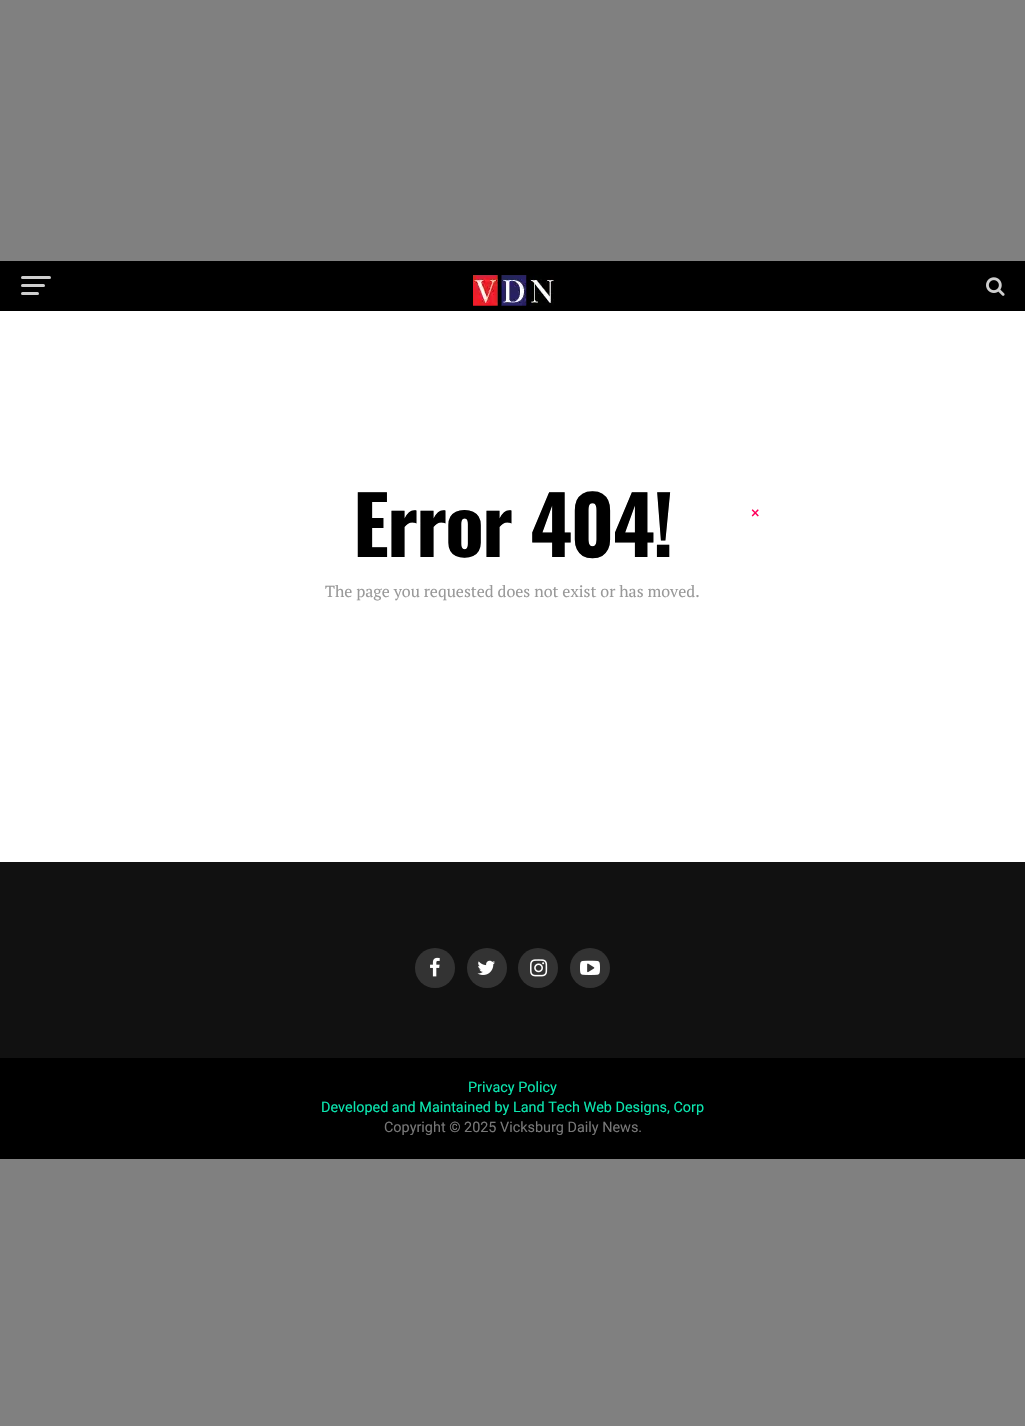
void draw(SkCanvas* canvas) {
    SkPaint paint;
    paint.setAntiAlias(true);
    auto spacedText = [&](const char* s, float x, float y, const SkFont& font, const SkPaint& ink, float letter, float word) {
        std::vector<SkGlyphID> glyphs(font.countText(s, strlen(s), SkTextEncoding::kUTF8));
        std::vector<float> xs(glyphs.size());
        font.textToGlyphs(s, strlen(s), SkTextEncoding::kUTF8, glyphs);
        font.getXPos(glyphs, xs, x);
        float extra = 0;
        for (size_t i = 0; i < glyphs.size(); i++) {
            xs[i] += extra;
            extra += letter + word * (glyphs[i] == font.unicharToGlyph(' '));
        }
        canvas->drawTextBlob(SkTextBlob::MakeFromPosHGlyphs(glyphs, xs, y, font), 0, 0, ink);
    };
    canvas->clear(0xFF808080);
    paint.setColor(0xFF000000);
    canvas->drawRect(SkRect::MakeXYWH(0, 261, 1025, 50), paint);
    paint.setColor(0xFFCECECE);
    canvas->drawRoundRect(SkRect::MakeXYWH(21, 276, 30, 3), 1.5f, 1.5f, paint);
    canvas->drawRoundRect(SkRect::MakeXYWH(21, 284, 24, 3), 1.5f, 1.5f, paint);
    canvas->drawRoundRect(SkRect::MakeXYWH(21, 292, 18, 3), 1.5f, 1.5f, paint);
    canvas->drawImageRect(SkImages::DeferredFromEncodedData(SkData::MakeFromFileName("img1.png")), SkRect::MakeXYWH(473, 275, 81, 31), SkSamplingOptions());
    canvas->drawImageRect(SkImages::DeferredFromEncodedData(SkData::MakeFromFileName("img2.png")), SkRect::MakeXYWH(986, 277, 19, 19), SkSamplingOptions());
    paint.setColor(0xFFFFFFFF);
    canvas->drawRect(SkRect::MakeXYWH(0, 311, 1025, 551), paint);
    SkFont font1(fontMgr->matchFamilyStyle("Oswald", SkFontStyle::Bold()), 80);
    font1.setSubpixel(true);
    paint.setColor(0xFF000000);
    spacedText("Error 404!", 353, 557, font1, paint, -1.6f, 0);
    SkFont font2(fontMgr->matchFamilyStyle("PT Serif", SkFontStyle::Normal()), 16);
    font2.setSubpixel(true);
    paint.setColor(0xFF999999);
    canvas->drawString("The page you requested does not exist or has moved.", 325, 597, font2, paint);
    paint.setColor(0xFF111111);
    canvas->drawRect(SkRect::MakeXYWH(0, 862, 1025, 196), paint);
    paint.setColor(0xFF333333);
    canvas->drawCircle(435, 968, 20, paint);
    canvas->drawImageRect(SkImages::DeferredFromEncodedData(SkData::MakeFromFileName("img3.png")), SkRect::MakeXYWH(430, 957, 10, 20), SkSamplingOptions());
    canvas->drawCircle(487, 968, 20, paint);
    canvas->drawImageRect(SkImages::DeferredFromEncodedData(SkData::MakeFromFileName("img4.png")), SkRect::MakeXYWH(477, 960, 18, 15), SkSamplingOptions());
    canvas->drawCircle(538, 968, 20, paint);
    canvas->drawImageRect(SkImages::DeferredFromEncodedData(SkData::MakeFromFileName("img5.png")), SkRect::MakeXYWH(530, 959, 18, 18), SkSamplingOptions());
    canvas->drawCircle(590, 968, 20, paint);
    canvas->drawImageRect(SkImages::DeferredFromEncodedData(SkData::MakeFromFileName("img6.png")), SkRect::MakeXYWH(580, 960, 20, 15), SkSamplingOptions());
    paint.setColor(0xFF000000);
    canvas->drawRect(SkRect::MakeXYWH(0, 1058, 1025, 101), paint);
    SkFont font3(fontMgr->matchFamilyStyle("Roboto", SkFontStyle::Normal()), 14.4f);
    font3.setSubpixel(true);
    paint.setColor(0xFF0BE6AF);
    canvas->drawString("Privacy Policy", 468, 1092, font3, paint);
    canvas->drawString("Developed and Maintained by Land Tech Web Designs, Corp", 321, 1112, font3, paint);
    paint.setColor(0xFF777777);
    canvas->drawString("Copyright © 2025 Vicksburg Daily News.", 384, 1132, font3, paint);
    SkFont font4(fontMgr->matchFamilyStyle("Roboto", SkFontStyle::Normal()), 16);
    font4.setSubpixel(true);
    paint.setColor(0xFFFF005B);
    canvas->drawString("×", 751, 518, font4, paint);
}
